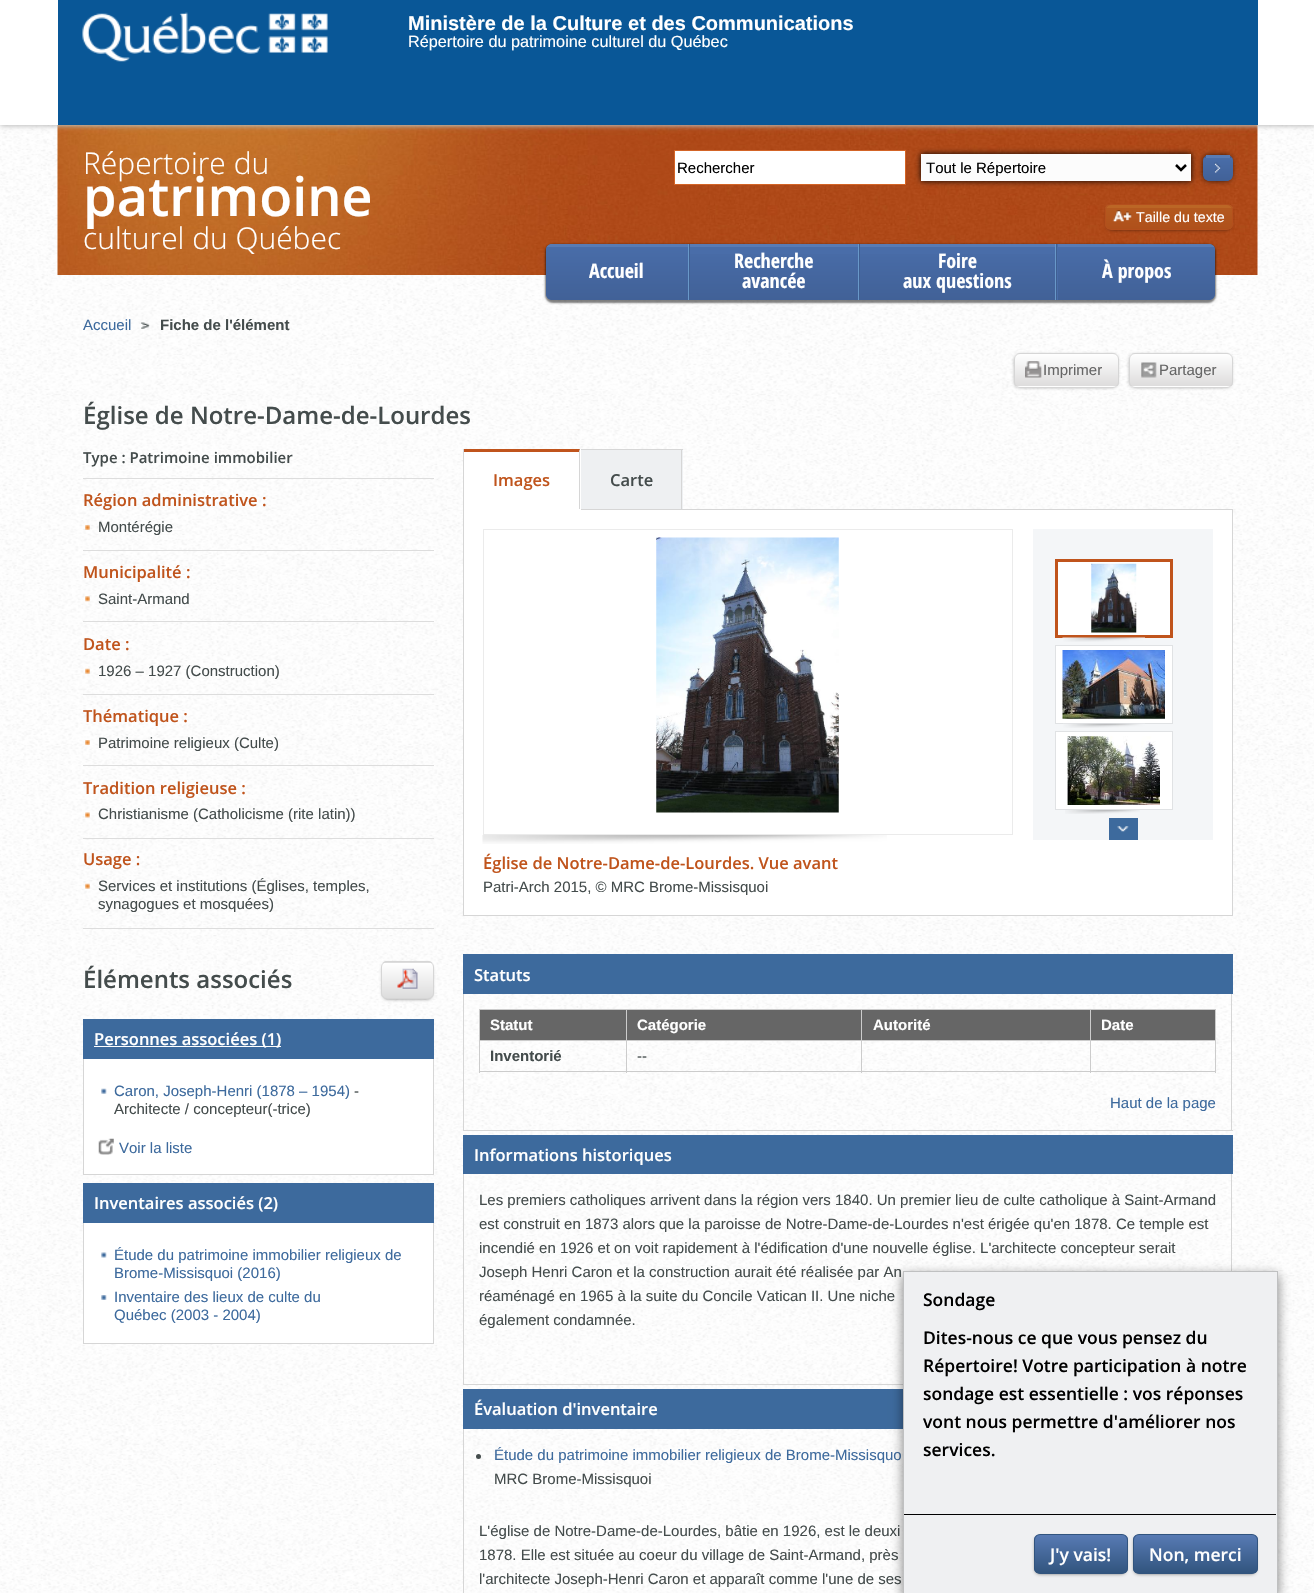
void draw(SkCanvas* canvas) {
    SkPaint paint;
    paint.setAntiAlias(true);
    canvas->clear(0xFFFFFFFF);
    canvas->drawImageRect(SkImages::DeferredFromEncodedData(SkData::MakeFromFileName("img2.png")), SkRect::MakeXYWH(0, 125, 1314, 1468), SkSamplingOptions());
    canvas->drawImageRect(SkImages::DeferredFromEncodedData(SkData::MakeFromFileName("img3.png")), SkRect::MakeXYWH(57, 125, 1201, 150), SkSamplingOptions());
    paint.setColor(0xFFBBBBBB);
    paint.setMaskFilter(SkMaskFilter::MakeBlur(kNormal_SkBlurStyle, 2.5f));
    canvas->drawRect(SkRect::MakeXYWH(0, 1, 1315, 125), paint);
    paint.setMaskFilter(nullptr);
    paint.setColor(0xFFFFFFFF);
    canvas->drawRect(SkRect::MakeXYWH(0, 0, 1314, 125), paint);
    paint.setColor(0xFF095797);
    canvas->drawRect(SkRect::MakeXYWH(58, 0, 1200, 125), paint);
    canvas->drawImageRect(SkImages::DeferredFromEncodedData(SkData::MakeFromFileName("img1.png")), SkRect::MakeXYWH(82, 12, 246, 50), SkSamplingOptions());
    SkFont font1(fontMgr->matchFamilyStyle("Liberation Sans", SkFontStyle::Bold()), 20);
    font1.setSubpixel(true);
    paint.setColor(0xFFFFFFFF);
    canvas->drawString("Ministère de la Culture et des Communications", 408, 30, font1, paint);
    SkFont font2(fontMgr->matchFamilyStyle("Liberation Sans", SkFontStyle::Normal()), 16.25f);
    font2.setSubpixel(true);
    canvas->drawString("Répertoire du patrimoine culturel du Québec", 408, 47, font2, paint);
    SkFont font3(fontMgr->matchFamilyStyle("Open Sans", SkFontStyle(300, SkFontStyle::kNormal_Width, SkFontStyle::kUpright_Slant)), 30);
    font3.setSubpixel(true);
    canvas->drawString("Répertoire du", 83, 174, font3, paint);
    SkFont font4(fontMgr->matchFamilyStyle("Open Sans", SkFontStyle(600, SkFontStyle::kNormal_Width, SkFontStyle::kUpright_Slant)), 54);
    font4.setSubpixel(true);
    canvas->drawString("patrimoine", 83, 216, font4, paint);
    canvas->drawString("culturel du Québec", 83, 249, font3, paint);
    canvas->drawRect(SkRect::MakeXYWH(674.5f, 150.5f, 231, 34), paint);
    paint.setStyle(SkPaint::kStroke_Style);
    paint.setStrokeWidth(1);
    paint.setColor(0xFFD36426);
    canvas->drawRect(SkRect::MakeXYWH(674.5f, 150.5f, 231, 34), paint);
    SkFont font5(fontMgr->matchFamilyStyle("Liberation Sans", SkFontStyle::Normal()), 15);
    font5.setSubpixel(true);
    paint.setStyle(SkPaint::kFill_Style);
    paint.setColor(0xFF000000);
    canvas->drawString("Rechercher", 677, 173, font5, paint);
    paint.setMaskFilter(SkMaskFilter::MakeBlur(kNormal_SkBlurStyle, 3));
    canvas->drawRect(SkRect::MakeXYWH(921, 154, 270, 27), paint);
    paint.setMaskFilter(nullptr);
    paint.setColor(0xFFFCFCFC);
    canvas->drawRect(SkRect::MakeXYWH(921, 154, 270, 27), paint);
    paint.setStyle(SkPaint::kStroke_Style);
    paint.setStrokeWidth(2.5f);
    paint.setColor(0xFF000000);
    canvas->drawPath(SkPathBuilder().moveTo(1176, 165).lineTo(1181, 170).lineTo(1186, 165).detach(), paint);
    paint.setStyle(SkPaint::kFill_Style);
    canvas->drawString("Tout le Répertoire", 926, 173, font5, paint);
    paint.setMaskFilter(SkMaskFilter::MakeBlur(kNormal_SkBlurStyle, 3));
    canvas->drawRoundRect(SkRect::MakeXYWH(1204, 156, 27, 24), 5, 5, paint);
    paint.setMaskFilter(nullptr);
    canvas->save();
    canvas->clipPath(SkPathBuilder().moveTo(1209, 155).lineTo(1227, 155).cubicTo(1230.5f, 155, 1233, 157.5f, 1233, 161).lineTo(1233, 175).cubicTo(1233, 178.5f, 1230.5f, 181, 1227, 181).lineTo(1209, 181).cubicTo(1205.5f, 181, 1203, 178.5f, 1203, 175).lineTo(1203, 161).cubicTo(1203, 157.5f, 1205.5f, 155, 1209, 155).close().detach(), true);
    {
        const SkColor colors[] = {0xFF496DA9, 0xFF416197};
        const float stops[] = {0, 1};
        const SkPoint ends[] = {{1218, 134}, {1218, 158}};
        paint.setShader(SkGradientShader::MakeLinear(ends, colors, stops, 2, SkTileMode::kClamp));
        paint.setAlpha(255);
    }
    canvas->drawRect(SkRect::MakeXYWH(1203, 155, 30, 3), paint);
    {
        const SkColor colors[] = {0xFF496DA9, 0xFF416197};
        const float stops[] = {0, 1};
        const SkPoint ends[] = {{1218, 158}, {1218, 181}};
        paint.setShader(SkGradientShader::MakeLinear(ends, colors, stops, 2, SkTileMode::kClamp));
        paint.setAlpha(255);
    }
    canvas->drawPath(SkPathBuilder().moveTo(1203, 158).lineTo(1233, 158).lineTo(1233, 175).cubicTo(1233, 178.5f, 1230.5f, 181, 1227, 181).lineTo(1209, 181).cubicTo(1205.5f, 181, 1203, 178.5f, 1203, 175).close().detach(), paint);
    canvas->restore();
    paint.setShader(nullptr);
    paint.setColor(0xFF587BB4);
    canvas->drawRect(SkRect::MakeXYWH(1206, 155, 24, 3), paint);
    canvas->drawImageRect(SkImages::DeferredFromEncodedData(SkData::MakeFromFileName("img4.png")), SkRect::MakeXYWH(1214, 162, 7, 11), SkSamplingOptions());
    paint.setColor(0xCC000000);
    paint.setMaskFilter(SkMaskFilter::MakeBlur(kNormal_SkBlurStyle, 2));
    canvas->drawRoundRect(SkRect::MakeXYWH(1108, 208, 122, 21), 4, 4, paint);
    paint.setMaskFilter(nullptr);
    canvas->save();
    canvas->clipPath(SkPathBuilder().moveTo(1111, 204).lineTo(1227, 204).cubicTo(1230.5f, 204, 1233, 206.5f, 1233, 210).lineTo(1233, 224).cubicTo(1233, 227.5f, 1230.5f, 230, 1227, 230).lineTo(1111, 230).cubicTo(1107.5f, 230, 1105, 227.5f, 1105, 224).lineTo(1105, 210).cubicTo(1105, 206.5f, 1107.5f, 204, 1111, 204).close().detach(), true);
    {
        const SkColor colors[] = {0xFFBB6625, 0xFFBB6625, 0xFFB4591F, 0xFFAF501B};
        const float stops[] = {0, 0.12f, 0.14f, 1};
        const SkPoint ends[] = {{1169, 205}, {1169, 229}};
        paint.setShader(SkGradientShader::MakeLinear(ends, colors, stops, 4, SkTileMode::kClamp));
        paint.setAlpha(255);
    }
    canvas->drawRect(SkRect::MakeXYWH(1105, 205, 128, 24), paint);
    canvas->restore();
    paint.setStyle(SkPaint::kStroke_Style);
    paint.setStrokeWidth(1);
    paint.setShader(nullptr);
    paint.setColor(0xFFB44F1C);
    canvas->drawRoundRect(SkRect::MakeXYWH(1105.5f, 204.5f, 127, 25), 5.5f, 5.5f, paint);
    canvas->drawImageRect(SkImages::DeferredFromEncodedData(SkData::MakeFromFileName("img5.png")), SkRect::MakeXYWH(1112, 210, 20, 12), SkSamplingOptions());
    SkFont font6(fontMgr->matchFamilyStyle("Liberation Sans", SkFontStyle::Normal()), 14.25f);
    font6.setSubpixel(true);
    paint.setStyle(SkPaint::kFill_Style);
    paint.setColor(0xFFFFFFFF);
    canvas->drawString("Taille du texte", 1136, 222, font6, paint);
    paint.setColor(0x80000000);
    paint.setMaskFilter(SkMaskFilter::MakeBlur(kNormal_SkBlurStyle, 1));
    canvas->drawRoundRect(SkRect::MakeXYWH(545, 244, 671, 59), 8, 8, paint);
    paint.setMaskFilter(nullptr);
    paint.setColor(0xFF496DA9);
    canvas->drawRoundRect(SkRect::MakeXYWH(546, 244, 669, 56), 6, 6, paint);
    paint.setColor(0xFF6998C9);
    canvas->drawRect(SkRect::MakeXYWH(688, 244, 1, 56), paint);
    canvas->save();
    canvas->clipPath(SkPathBuilder().moveTo(552, 244).lineTo(1209, 244).cubicTo(1212.5f, 244, 1215, 246.5f, 1215, 250).lineTo(1215, 294).cubicTo(1215, 297.5f, 1212.5f, 300, 1209, 300).lineTo(552, 300).cubicTo(548.5f, 300, 546, 297.5f, 546, 294).lineTo(546, 250).cubicTo(546, 246.5f, 548.5f, 244, 552, 244).close().detach(), true);
    {
        const SkColor colors[] = {0xFF496DA9, 0xFF416197};
        const float stops[] = {0, 1};
        const SkPoint ends[] = {{617, 246}, {617, 300}};
        paint.setShader(SkGradientShader::MakeLinear(ends, colors, stops, 2, SkTileMode::kClamp));
        paint.setAlpha(255);
    }
    canvas->drawPath(SkPathBuilder().moveTo(546, 246).lineTo(688, 246).lineTo(688, 300).lineTo(552, 300).cubicTo(548.5f, 300, 546, 297.5f, 546, 294).close().detach(), paint);
    paint.setShader(nullptr);
    paint.setColor(0xFF587BB4);
    canvas->drawRect(SkRect::MakeXYWH(546, 244, 142, 3), paint);
    canvas->restore();
    SkFont font7(fontMgr->matchFamilyStyle("Open Sans Condensed", SkFontStyle::Bold()), 20);
    font7.setSubpixel(true);
    paint.setColor(0xFFFFFFFF);
    canvas->drawString("Accueil", 589, 278, font7, paint);
    paint.setColor(0xFF6998C9);
    canvas->drawRect(SkRect::MakeXYWH(858, 244, 1, 56), paint);
    paint.setColor(0xFF3F5F92);
    canvas->drawRect(SkRect::MakeXYWH(689, 244, 1, 56), paint);
    {
        const SkColor colors[] = {0xFF496DA9, 0xFF416197};
        const float stops[] = {0, 1};
        const SkPoint ends[] = {{774, 246}, {774, 300}};
        paint.setShader(SkGradientShader::MakeLinear(ends, colors, stops, 2, SkTileMode::kClamp));
        paint.setAlpha(255);
    }
    canvas->drawRect(SkRect::MakeXYWH(690, 254, 168, 46), paint);
    paint.setShader(nullptr);
    paint.setColor(0xFF587BB4);
    canvas->drawRect(SkRect::MakeXYWH(690, 244, 168, 3), paint);
    paint.setColor(0xFFFFFFFF);
    canvas->drawString("Recherche", 734, 268, font7, paint);
    canvas->drawString("avancée", 742, 288, font7, paint);
    paint.setColor(0xFF6998C9);
    canvas->drawRect(SkRect::MakeXYWH(1055, 244, 1, 56), paint);
    paint.setColor(0xFF3F5F92);
    canvas->drawRect(SkRect::MakeXYWH(859, 244, 1, 56), paint);
    {
        const SkColor colors[] = {0xFF496DA9, 0xFF416197};
        const float stops[] = {0, 1};
        const SkPoint ends[] = {{958, 246}, {958, 300}};
        paint.setShader(SkGradientShader::MakeLinear(ends, colors, stops, 2, SkTileMode::kClamp));
        paint.setAlpha(255);
    }
    canvas->drawRect(SkRect::MakeXYWH(860, 254, 195, 46), paint);
    paint.setShader(nullptr);
    paint.setColor(0xFF587BB4);
    canvas->drawRect(SkRect::MakeXYWH(860, 244, 195, 3), paint);
    paint.setColor(0xFFFFFFFF);
    canvas->drawString("Foire", 938, 268, font7, paint);
    canvas->drawString("aux questions", 903, 288, font7, paint);
    paint.setColor(0xFF3F5F92);
    canvas->drawRect(SkRect::MakeXYWH(1056, 244, 1, 56), paint);
    canvas->save();
    canvas->clipPath(SkPathBuilder().moveTo(552, 244).lineTo(1209, 244).cubicTo(1212.5f, 244, 1215, 246.5f, 1215, 250).lineTo(1215, 294).cubicTo(1215, 297.5f, 1212.5f, 300, 1209, 300).lineTo(552, 300).cubicTo(548.5f, 300, 546, 297.5f, 546, 294).lineTo(546, 250).cubicTo(546, 246.5f, 548.5f, 244, 552, 244).close().detach(), true);
    {
        const SkColor colors[] = {0xFF496DA9, 0xFF416197};
        const float stops[] = {0, 1};
        const SkPoint ends[] = {{1136, 246}, {1136, 300}};
        paint.setShader(SkGradientShader::MakeLinear(ends, colors, stops, 2, SkTileMode::kClamp));
        paint.setAlpha(255);
    }
    canvas->drawPath(SkPathBuilder().moveTo(1058, 246).lineTo(1215, 246).lineTo(1215, 294).cubicTo(1215, 297.5f, 1212.5f, 300, 1209, 300).lineTo(1058, 300).close().detach(), paint);
    paint.setShader(nullptr);
    paint.setColor(0xFF587BB4);
    canvas->drawRect(SkRect::MakeXYWH(1058, 244, 157, 3), paint);
    canvas->restore();
    paint.setColor(0xFFFFFFFF);
    canvas->drawString("À propos", 1102, 278, font7, paint);
    canvas->drawImageRect(SkImages::DeferredFromEncodedData(SkData::MakeFromFileName("img6.png")), SkRect::MakeXYWH(141, 322, 9, 7), SkSamplingOptions());
    paint.setColor(0xFF3D6A9D);
    canvas->drawString("Accueil", 83, 330, font5, paint);
    SkFont font8(fontMgr->matchFamilyStyle("Liberation Sans", SkFontStyle::Bold()), 15);
    font8.setSubpixel(true);
    paint.setColor(0xFF444C4C);
    canvas->drawString("Fiche de l'élément", 160, 330, font8, paint);
    paint.setColor(0xCC000000);
    paint.setMaskFilter(SkMaskFilter::MakeBlur(kNormal_SkBlurStyle, 2));
    canvas->drawRoundRect(SkRect::MakeXYWH(1016, 356, 100, 30), 4, 4, paint);
    paint.setMaskFilter(nullptr);
    canvas->save();
    canvas->clipPath(SkPathBuilder().moveTo(1020, 353).lineTo(1113, 353).cubicTo(1116.5f, 353, 1119, 355.5f, 1119, 359).lineTo(1119, 382).cubicTo(1119, 385.5f, 1116.5f, 388, 1113, 388).lineTo(1020, 388).cubicTo(1016.5f, 388, 1014, 385.5f, 1014, 382).lineTo(1014, 359).cubicTo(1014, 355.5f, 1016.5f, 353, 1020, 353).close().detach(), true);
    {
        const SkColor colors[] = {0xFFFFFFFF, 0xFFDDDCDC};
        const float stops[] = {0, 1};
        const SkPoint ends[] = {{1066, 354}, {1066, 386}};
        paint.setShader(SkGradientShader::MakeLinear(ends, colors, stops, 2, SkTileMode::kClamp));
        paint.setAlpha(255);
    }
    canvas->drawRect(SkRect::MakeXYWH(1014, 354, 105, 32), paint);
    {
        const SkColor colors[] = {0xFFFFFFFF, 0xFFDDDCDC};
        const float stops[] = {0, 1};
        const SkPoint ends[] = {{1066, 386}, {1066, 419}};
        paint.setShader(SkGradientShader::MakeLinear(ends, colors, stops, 2, SkTileMode::kClamp));
        paint.setAlpha(255);
    }
    canvas->drawRect(SkRect::MakeXYWH(1014, 386, 105, 2), paint);
    canvas->restore();
    paint.setStyle(SkPaint::kStroke_Style);
    paint.setShader(nullptr);
    paint.setColor(0xFFD6D6D6);
    canvas->drawRoundRect(SkRect::MakeXYWH(1014.5f, 353.5f, 104, 34), 5.5f, 5.5f, paint);
    canvas->drawImageRect(SkImages::DeferredFromEncodedData(SkData::MakeFromFileName("img7.png")), SkRect::MakeXYWH(1025, 361, 17, 17), SkSamplingOptions());
    paint.setStyle(SkPaint::kFill_Style);
    paint.setColor(0xFF666666);
    canvas->drawString("Imprimer", 1043, 375, font5, paint);
    paint.setColor(0xCC000000);
    paint.setMaskFilter(SkMaskFilter::MakeBlur(kNormal_SkBlurStyle, 2));
    canvas->drawRoundRect(SkRect::MakeXYWH(1131, 356, 99, 30), 4, 4, paint);
    paint.setMaskFilter(nullptr);
    canvas->save();
    canvas->clipPath(SkPathBuilder().moveTo(1135, 353).lineTo(1227, 353).cubicTo(1230.5f, 353, 1233, 355.5f, 1233, 359).lineTo(1233, 382).cubicTo(1233, 385.5f, 1230.5f, 388, 1227, 388).lineTo(1135, 388).cubicTo(1131.5f, 388, 1129, 385.5f, 1129, 382).lineTo(1129, 359).cubicTo(1129, 355.5f, 1131.5f, 353, 1135, 353).close().detach(), true);
    {
        const SkColor colors[] = {0xFFFFFFFF, 0xFFDDDCDC};
        const float stops[] = {0, 1};
        const SkPoint ends[] = {{1181, 354}, {1181, 386}};
        paint.setShader(SkGradientShader::MakeLinear(ends, colors, stops, 2, SkTileMode::kClamp));
        paint.setAlpha(255);
    }
    canvas->drawRect(SkRect::MakeXYWH(1129, 354, 104, 32), paint);
    {
        const SkColor colors[] = {0xFFFFFFFF, 0xFFDDDCDC};
        const float stops[] = {0, 1};
        const SkPoint ends[] = {{1181, 386}, {1181, 419}};
        paint.setShader(SkGradientShader::MakeLinear(ends, colors, stops, 2, SkTileMode::kClamp));
        paint.setAlpha(255);
    }
    canvas->drawRect(SkRect::MakeXYWH(1129, 386, 104, 2), paint);
    canvas->restore();
    paint.setStyle(SkPaint::kStroke_Style);
    paint.setShader(nullptr);
    paint.setColor(0xFFD6D6D6);
    canvas->drawRoundRect(SkRect::MakeXYWH(1129.5f, 353.5f, 103, 34), 5.5f, 5.5f, paint);
    canvas->drawImageRect(SkImages::DeferredFromEncodedData(SkData::MakeFromFileName("img8.png")), SkRect::MakeXYWH(1141, 362, 16, 16), SkSamplingOptions());
    paint.setStyle(SkPaint::kFill_Style);
    paint.setColor(0xFF666666);
    canvas->drawString("Partager", 1159, 375, font5, paint);
    SkFont font9(fontMgr->matchFamilyStyle("Open Sans", SkFontStyle(600, SkFontStyle::kNormal_Width, SkFontStyle::kUpright_Slant)), 24);
    font9.setSubpixel(true);
    paint.setColor(0xFF444C4C);
    canvas->drawString("Église de Notre-Dame-de-Lourdes", 83, 424, font9, paint);
    paint.setColor(0xFFDDDDDD);
    canvas->drawRect(SkRect::MakeXYWH(83, 478, 351, 1), paint);
    SkFont font10(fontMgr->matchFamilyStyle("Open Sans", SkFontStyle(600, SkFontStyle::kNormal_Width, SkFontStyle::kUpright_Slant)), 15);
    font10.setSubpixel(true);
    paint.setColor(0xFF444C4C);
    canvas->drawString("Type : Patrimoine immobilier", 83, 463, font10, paint);
    paint.setColor(0xFFDDDDDD);
    canvas->drawRect(SkRect::MakeXYWH(83, 550, 351, 1), paint);
    SkFont font11(fontMgr->matchFamilyStyle("Open Sans", SkFontStyle(600, SkFontStyle::kNormal_Width, SkFontStyle::kUpright_Slant)), 16.5f);
    font11.setSubpixel(true);
    paint.setColor(0xFFC0541C);
    canvas->drawString("Région administrative :", 83, 506, font11, paint);
    canvas->drawImageRect(SkImages::DeferredFromEncodedData(SkData::MakeFromFileName("img9.png")), SkRect::MakeXYWH(85, 525, 5, 5), SkSamplingOptions());
    paint.setColor(0xFF444C4C);
    canvas->drawString("Montérégie", 98, 532, font5, paint);
    paint.setColor(0xFFDDDDDD);
    canvas->drawRect(SkRect::MakeXYWH(83, 621, 351, 1), paint);
    paint.setColor(0xFFC0541C);
    canvas->drawString("Municipalité :", 83, 578, font11, paint);
    canvas->drawImageRect(SkImages::DeferredFromEncodedData(SkData::MakeFromFileName("img10.png")), SkRect::MakeXYWH(85, 596, 5, 6), SkSamplingOptions());
    paint.setColor(0xFF444C4C);
    canvas->drawString("Saint-Armand", 98, 604, font5, paint);
    paint.setColor(0xFFDDDDDD);
    canvas->drawRect(SkRect::MakeXYWH(83, 694, 351, 1), paint);
    paint.setColor(0xFFC0541C);
    canvas->drawString("Date :", 83, 650, font11, paint);
    canvas->drawImageRect(SkImages::DeferredFromEncodedData(SkData::MakeFromFileName("img11.png")), SkRect::MakeXYWH(85, 668, 5, 6), SkSamplingOptions());
    paint.setColor(0xFF444C4C);
    canvas->drawString("1926 – 1927 (Construction)", 98, 676, font5, paint);
    paint.setColor(0xFFDDDDDD);
    canvas->drawRect(SkRect::MakeXYWH(83, 765, 351, 1), paint);
    paint.setColor(0xFFC0541C);
    canvas->drawString("Thématique :", 83, 722, font11, paint);
    canvas->drawImageRect(SkImages::DeferredFromEncodedData(SkData::MakeFromFileName("img12.png")), SkRect::MakeXYWH(85, 740, 5, 5), SkSamplingOptions());
    paint.setColor(0xFF444C4C);
    canvas->drawString("Patrimoine religieux (Culte)", 98, 748, font5, paint);
    paint.setColor(0xFFDDDDDD);
    canvas->drawRect(SkRect::MakeXYWH(83, 838, 351, 1), paint);
    paint.setColor(0xFFC0541C);
    canvas->drawString("Tradition religieuse :", 83, 794, font11, paint);
    canvas->drawImageRect(SkImages::DeferredFromEncodedData(SkData::MakeFromFileName("img13.png")), SkRect::MakeXYWH(85, 812, 5, 6), SkSamplingOptions());
    paint.setColor(0xFF444C4C);
    canvas->drawString("Christianisme (Catholicisme (rite latin))", 98, 819, font5, paint);
    paint.setColor(0xFFDDDDDD);
    canvas->drawRect(SkRect::MakeXYWH(83, 928, 351, 1), paint);
    paint.setColor(0xFFC0541C);
    canvas->drawString("Usage :", 83, 865, font11, paint);
    canvas->drawImageRect(SkImages::DeferredFromEncodedData(SkData::MakeFromFileName("img14.png")), SkRect::MakeXYWH(85, 883, 5, 6), SkSamplingOptions());
    paint.setColor(0xFF444C4C);
    canvas->drawString("Services et institutions (Églises, temples,", 98, 891, font5, paint);
    canvas->drawString("synagogues et mosquées)", 98, 909, font5, paint);
    canvas->drawString("Éléments associés", 83, 988, font9, paint);
    paint.setColor(0xCC000000);
    paint.setMaskFilter(SkMaskFilter::MakeBlur(kNormal_SkBlurStyle, 2));
    canvas->drawRoundRect(SkRect::MakeXYWH(384, 965, 47, 33), 4, 4, paint);
    paint.setMaskFilter(nullptr);
    canvas->save();
    canvas->clipPath(SkPathBuilder().moveTo(387, 961).lineTo(428, 961).cubicTo(431.5f, 961, 434, 963.5f, 434, 967).lineTo(434, 993).cubicTo(434, 996.5f, 431.5f, 999, 428, 999).lineTo(387, 999).cubicTo(383.5f, 999, 381, 996.5f, 381, 993).lineTo(381, 967).cubicTo(381, 963.5f, 383.5f, 961, 387, 961).close().detach(), true);
    {
        const SkColor colors[] = {0xFFFFFFFF, 0xFFDDDCDC};
        const float stops[] = {0, 1};
        const SkPoint ends[] = {{408, 928}, {408, 963}};
        paint.setShader(SkGradientShader::MakeLinear(ends, colors, stops, 2, SkTileMode::kClamp));
        paint.setAlpha(255);
    }
    canvas->drawRect(SkRect::MakeXYWH(381, 961, 53, 2), paint);
    {
        const SkColor colors[] = {0xFFFFFFFF, 0xFFDDDCDC};
        const float stops[] = {0, 1};
        const SkPoint ends[] = {{408, 963}, {408, 998}};
        paint.setShader(SkGradientShader::MakeLinear(ends, colors, stops, 2, SkTileMode::kClamp));
        paint.setAlpha(255);
    }
    canvas->drawRect(SkRect::MakeXYWH(381, 963, 53, 35), paint);
    canvas->restore();
    paint.setStyle(SkPaint::kStroke_Style);
    paint.setShader(nullptr);
    paint.setColor(0xFFD6D6D6);
    canvas->drawRoundRect(SkRect::MakeXYWH(381.5f, 961.5f, 52, 37), 5.5f, 5.5f, paint);
    canvas->drawImageRect(SkImages::DeferredFromEncodedData(SkData::MakeFromFileName("img15.png")), SkRect::MakeXYWH(397, 968, 21, 21), SkSamplingOptions());
    paint.setStyle(SkPaint::kFill_Style);
    paint.setColor(0xFF3D6A9D);
    canvas->drawRect(SkRect::MakeXYWH(83, 1019, 351, 40), paint);
    paint.setColor(0xFFFFFFFF);
    canvas->drawRect(SkRect::MakeXYWH(94, 1046, 187, 1), paint);
    canvas->drawString("Personnes associées (1)", 94, 1045, font11, paint);
    canvas->drawRect(SkRect::MakeXYWH(84, 1059, 349, 115), paint);
    paint.setColor(0xFFD6D6D6);
    canvas->drawRect(SkRect::MakeXYWH(433, 1059, 1, 116), paint);
    canvas->drawRect(SkRect::MakeXYWH(83, 1174, 351, 1), paint);
    canvas->drawRect(SkRect::MakeXYWH(83, 1059, 1, 116), paint);
    canvas->drawImageRect(SkImages::DeferredFromEncodedData(SkData::MakeFromFileName("img16.png")), SkRect::MakeXYWH(101, 1088, 6, 6), SkSamplingOptions());
    paint.setColor(0xFF3D6A9D);
    canvas->drawString("Caron, Joseph-Henri (1878 – 1954)", 114, 1096, font5, paint);
    paint.setColor(0xFF444C4C);
    canvas->drawString("-", 354, 1096, font5, paint);
    canvas->drawString("Architecte / concepteur(-trice)", 114, 1114, font5, paint);
    canvas->drawImageRect(SkImages::DeferredFromEncodedData(SkData::MakeFromFileName("img17.png")), SkRect::MakeXYWH(98, 1138, 16, 17), SkSamplingOptions());
    paint.setColor(0xFF3D6A9D);
    canvas->drawString("Voir la liste", 119, 1153, font5, paint);
    canvas->drawRect(SkRect::MakeXYWH(83, 1183, 351, 40), paint);
    paint.setColor(0xFFFFFFFF);
    canvas->drawString("Inventaires associés (2)", 94, 1209, font11, paint);
    canvas->drawRect(SkRect::MakeXYWH(84, 1223, 349, 120), paint);
    paint.setColor(0xFFD6D6D6);
    canvas->drawRect(SkRect::MakeXYWH(433, 1223, 1, 121), paint);
    canvas->drawRect(SkRect::MakeXYWH(83, 1343, 351, 1), paint);
    canvas->drawRect(SkRect::MakeXYWH(83, 1223, 1, 121), paint);
    canvas->drawImageRect(SkImages::DeferredFromEncodedData(SkData::MakeFromFileName("img18.png")), SkRect::MakeXYWH(101, 1252, 6, 6), SkSamplingOptions());
    paint.setColor(0xFF3D6A9D);
    canvas->drawString("Étude du patrimoine immobilier religieux de", 114, 1260, font5, paint);
    canvas->drawString("Brome-Missisquoi (2016)", 114, 1278, font5, paint);
    canvas->drawImageRect(SkImages::DeferredFromEncodedData(SkData::MakeFromFileName("img19.png")), SkRect::MakeXYWH(101, 1295, 6, 5), SkSamplingOptions());
    canvas->drawString("Inventaire des lieux de culte du", 114, 1302, font5, paint);
    canvas->drawString("Québec (2003 - 2004)", 114, 1320, font5, paint);
    paint.setColor(0xFFFFFFFF);
    canvas->drawRect(SkRect::MakeXYWH(463.5f, 509.5f, 769, 406), paint);
    paint.setStyle(SkPaint::kStroke_Style);
    paint.setColor(0xFFD6D6D6);
    canvas->drawRect(SkRect::MakeXYWH(463.5f, 509.5f, 769, 406), paint);
    paint.setStyle(SkPaint::kFill_Style);
    canvas->drawRect(SkRect::MakeXYWH(463, 449, 1, 61), paint);
    paint.setColor(0xFFFFFFFF);
    canvas->drawRect(SkRect::MakeXYWH(464, 449, 116, 60), paint);
    paint.setColor(0xFFC0541C);
    canvas->drawPath(SkPathBuilder().moveTo(464, 449).lineTo(580, 449).lineTo(579, 452).lineTo(464, 452).close().detach(), paint);
    paint.setColor(0xFFD6D6D6);
    canvas->drawPath(SkPathBuilder().moveTo(580, 449).lineTo(580, 510).lineTo(579, 509).lineTo(579, 452).close().detach(), paint);
    paint.setColor(0xFFFFFFFF);
    canvas->drawRect(SkRect::MakeXYWH(464, 509, 116, 1), paint);
    paint.setColor(0xFFC0541C);
    canvas->drawString("Images", 493, 486, font11, paint);
    paint.setColor(0xFFEEF0F2);
    canvas->drawRect(SkRect::MakeXYWH(581, 450, 102, 59), paint);
    paint.setColor(0xFFD6D6D6);
    canvas->drawRect(SkRect::MakeXYWH(580, 449, 103, 1), paint);
    canvas->drawRect(SkRect::MakeXYWH(681, 449, 1, 61), paint);
    paint.setColor(0xFFFFFFFF);
    canvas->drawRect(SkRect::MakeXYWH(580, 449, 1, 61), paint);
    paint.setColor(0xFF444C4C);
    canvas->drawString("Carte", 610, 486, font11, paint);
    paint.setStyle(SkPaint::kStroke_Style);
    paint.setColor(0xFFEBEBEB);
    canvas->drawRect(SkRect::MakeXYWH(483.5f, 529.5f, 529, 305), paint);
    canvas->drawImageRect(SkImages::DeferredFromEncodedData(SkData::MakeFromFileName("img20.png")), SkRect::MakeXYWH(656, 537, 183, 276), SkSamplingOptions());
    canvas->drawImageRect(SkImages::DeferredFromEncodedData(SkData::MakeFromFileName("img21.png")), SkRect::MakeXYWH(482, 835, 405, 9), SkSamplingOptions());
    paint.setStyle(SkPaint::kFill_Style);
    paint.setColor(0xFFF4F6F8);
    canvas->drawRect(SkRect::MakeXYWH(1033, 529, 180, 311), paint);
    paint.setColor(0xFFFFFFFF);
    canvas->drawRect(SkRect::MakeXYWH(1056.5f, 560.5f, 115, 76), paint);
    paint.setStyle(SkPaint::kStroke_Style);
    paint.setStrokeWidth(3);
    paint.setColor(0xFFC0541C);
    canvas->drawRect(SkRect::MakeXYWH(1056.5f, 560.5f, 115, 76), paint);
    canvas->drawImageRect(SkImages::DeferredFromEncodedData(SkData::MakeFromFileName("img22.png")), SkRect::MakeXYWH(1091, 563, 46, 70), SkSamplingOptions());
    canvas->drawImageRect(SkImages::DeferredFromEncodedData(SkData::MakeFromFileName("img23.png")), SkRect::MakeXYWH(1062, 637, 83, 5), SkSamplingOptions());
    paint.setStyle(SkPaint::kFill_Style);
    paint.setColor(0xFFFFFFFF);
    canvas->drawRect(SkRect::MakeXYWH(1055.5f, 645.5f, 117, 78), paint);
    paint.setStyle(SkPaint::kStroke_Style);
    paint.setStrokeWidth(1);
    paint.setColor(0xFFE0E2E4);
    canvas->drawRect(SkRect::MakeXYWH(1055.5f, 645.5f, 117, 78), paint);
    canvas->drawImageRect(SkImages::DeferredFromEncodedData(SkData::MakeFromFileName("img24.png")), SkRect::MakeXYWH(1062, 650, 103, 69), SkSamplingOptions());
    canvas->drawImageRect(SkImages::DeferredFromEncodedData(SkData::MakeFromFileName("img25.png")), SkRect::MakeXYWH(1063, 723, 82, 5), SkSamplingOptions());
    paint.setStyle(SkPaint::kFill_Style);
    paint.setColor(0xFFFFFFFF);
    canvas->drawRect(SkRect::MakeXYWH(1055.5f, 731.5f, 117, 78), paint);
    paint.setStyle(SkPaint::kStroke_Style);
    paint.setColor(0xFFE0E2E4);
    canvas->drawRect(SkRect::MakeXYWH(1055.5f, 731.5f, 117, 78), paint);
    canvas->drawImageRect(SkImages::DeferredFromEncodedData(SkData::MakeFromFileName("img26.png")), SkRect::MakeXYWH(1067, 736, 93, 69), SkSamplingOptions());
    canvas->drawImageRect(SkImages::DeferredFromEncodedData(SkData::MakeFromFileName("img27.png")), SkRect::MakeXYWH(1065, 810, 75, 4), SkSamplingOptions());
    paint.setStyle(SkPaint::kFill_Style);
    paint.setColor(0xFF3D6A9D);
    canvas->drawRect(SkRect::MakeXYWH(1109, 818, 29, 22), paint);
    canvas->drawImageRect(SkImages::DeferredFromEncodedData(SkData::MakeFromFileName("img28.png")), SkRect::MakeXYWH(1117, 826, 12, 6), SkSamplingOptions());
    paint.setColor(0xFFC0541C);
    canvas->drawString("Église de Notre-Dame-de-Lourdes. Vue avant", 483, 869, font11, paint);
    paint.setColor(0xFF444C4C);
    canvas->drawString("Patri-Arch 2015, © MRC Brome-Missisquoi", 483, 892, font5, paint);
    paint.setColor(0xFF3D6A9D);
    canvas->drawRect(SkRect::MakeXYWH(463, 954, 770, 40), paint);
    paint.setColor(0xFFFFFFFF);
    canvas->drawString("Statuts", 474, 981, font11, paint);
    paint.setColor(0xFFD6D6D6);
    canvas->drawRect(SkRect::MakeXYWH(1231, 994, 1, 137), paint);
    canvas->drawRect(SkRect::MakeXYWH(463, 1130, 770, 1), paint);
    canvas->drawRect(SkRect::MakeXYWH(463, 994, 1, 137), paint);
    paint.setColor(0xFF666666);
    canvas->drawRect(SkRect::MakeXYWH(480, 1010, 146, 30), paint);
    paint.setColor(0xFFCCCCCC);
    canvas->drawRect(SkRect::MakeXYWH(1090, 1009, 126, 1), paint);
    canvas->drawRect(SkRect::MakeXYWH(1090, 1040, 126, 1), paint);
    canvas->drawRect(SkRect::MakeXYWH(1215, 1040, 1, 33), paint);
    canvas->drawRect(SkRect::MakeXYWH(1090, 1071, 126, 1), paint);
    canvas->drawRect(SkRect::MakeXYWH(1090, 1040, 1, 33), paint);
    canvas->drawRect(SkRect::MakeXYWH(861, 1040, 230, 1), paint);
    canvas->drawRect(SkRect::MakeXYWH(1090, 1009, 1, 32), paint);
    canvas->drawRect(SkRect::MakeXYWH(861, 1009, 230, 1), paint);
    paint.setColor(0xFF666666);
    canvas->drawRect(SkRect::MakeXYWH(627, 1010, 463, 30), paint);
    paint.setColor(0xFFCCCCCC);
    canvas->drawRect(SkRect::MakeXYWH(861, 1071, 230, 1), paint);
    canvas->drawRect(SkRect::MakeXYWH(861, 1040, 1, 33), paint);
    canvas->drawRect(SkRect::MakeXYWH(626, 1040, 237, 1), paint);
    canvas->drawRect(SkRect::MakeXYWH(861, 1009, 1, 32), paint);
    canvas->drawRect(SkRect::MakeXYWH(626, 1009, 237, 1), paint);
    canvas->drawRect(SkRect::MakeXYWH(626, 1071, 237, 1), paint);
    canvas->drawRect(SkRect::MakeXYWH(626, 1040, 1, 33), paint);
    canvas->drawRect(SkRect::MakeXYWH(479, 1040, 149, 1), paint);
    canvas->drawRect(SkRect::MakeXYWH(626, 1009, 1, 32), paint);
    canvas->drawRect(SkRect::MakeXYWH(479, 1009, 149, 1), paint);
    canvas->drawRect(SkRect::MakeXYWH(479, 1071, 149, 1), paint);
    canvas->drawRect(SkRect::MakeXYWH(479, 1040, 1, 33), paint);
    canvas->drawRect(SkRect::MakeXYWH(479, 1009, 1, 32), paint);
    paint.setColor(0xFFFFFFFF);
    canvas->drawString("Statut", 490, 1030, font8, paint);
    canvas->drawString("Catégorie", 637, 1030, font8, paint);
    canvas->drawString("Autorité", 873, 1030, font8, paint);
    paint.setColor(0xFF666666);
    canvas->drawRect(SkRect::MakeXYWH(1091, 1010, 124, 30), paint);
    paint.setColor(0xFFCCCCCC);
    canvas->drawRect(SkRect::MakeXYWH(1215, 1009, 1, 32), paint);
    paint.setColor(0xFFFFFFFF);
    canvas->drawString("Date", 1101, 1030, font8, paint);
    paint.setColor(0xFF444C4C);
    canvas->drawString("Inventorié", 490, 1061, font8, paint);
    canvas->drawString("--", 637, 1061, font5, paint);
    paint.setColor(0xFF3D6A9D);
    canvas->drawString("Haut de la page", 1110, 1108, font5, paint);
    canvas->drawRect(SkRect::MakeXYWH(463, 1135, 770, 39), paint);
    paint.setColor(0xFFFFFFFF);
    canvas->drawString("Informations historiques", 474, 1161, font11, paint);
    paint.setColor(0xFFD6D6D6);
    canvas->drawRect(SkRect::MakeXYWH(1231, 1174, 1, 97), paint);
    canvas->drawRect(SkRect::MakeXYWH(463, 1384, 440, 1), paint);
    canvas->drawRect(SkRect::MakeXYWH(463, 1174, 1, 211), paint);
    paint.setColor(0xFF444C4C);
    canvas->drawString("Les premiers catholiques arrivent dans la région vers 1840. Un premier lieu de culte catholique à Saint-Armand", 479, 1205, font5, paint);
    canvas->drawString("est construit en 1873 alors que la paroisse de Notre-Dame-de-Lourdes n'est érigée qu'en 1878. Ce temple est", 479, 1229, font5, paint);
    canvas->drawString("incendié en 1926 et on voit rapidement à l'édification d'une nouvelle église. L'architecte concepteur serait", 479, 1253, font5, paint);
    canvas->drawString("Joseph Henri Caron et la construction aurait été réalisée par An", 479, 1277, font5, paint);
    canvas->drawString("réaménagé en 1965 à la suite du Concile Vatican II. Une niche", 479, 1301, font5, paint);
    canvas->drawString("également condamnée.", 479, 1325, font5, paint);
    paint.setColor(0xFF3D6A9D);
    canvas->drawRect(SkRect::MakeXYWH(463, 1389, 440, 40), paint);
    paint.setColor(0xFFFFFFFF);
    canvas->drawString("Évaluation d'inventaire", 474, 1415, font11, paint);
    paint.setColor(0xFFD6D6D6);
    canvas->drawRect(SkRect::MakeXYWH(463, 1429, 1, 164), paint);
    paint.setColor(0xFF444C4C);
    canvas->drawCircle(478.5f, 1456.5f, 2.5f, paint);
    paint.setColor(0xFF3D6A9D);
    canvas->drawString("Étude du patrimoine immobilier religieux de Brome-Missisquo", 494, 1460, font5, paint);
    paint.setColor(0xFF444C4C);
    canvas->drawString("MRC Brome-Missisquoi", 494, 1484, font5, paint);
    canvas->drawString("L'église de Notre-Dame-de-Lourdes, bâtie en 1926, est le deuxi", 479, 1536, font5, paint);
    canvas->drawString("1878. Elle est située au coeur du village de Saint-Armand, près", 479, 1560, font5, paint);
    canvas->drawString("l'architecte Joseph-Henri Caron et apparaît comme l'une de ses", 479, 1584, font5, paint);
    paint.setColor(0xFFEFF0F2);
    canvas->drawRect(SkRect::MakeXYWH(903, 1271, 375, 322), paint);
    canvas->save();
    canvas->clipPath(SkPathBuilder(SkPathFillType::kEvenOdd).moveTo(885, 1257).lineTo(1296, 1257).lineTo(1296, 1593).lineTo(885, 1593).close().moveTo(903, 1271).lineTo(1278, 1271).lineTo(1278, 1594).lineTo(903, 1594).close().detach(), true);
    paint.setColor(0x80000000);
    paint.setMaskFilter(SkMaskFilter::MakeBlur(kNormal_SkBlurStyle, 5.5f));
    canvas->drawRect(SkRect::MakeXYWH(903, 1275, 375, 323), paint);
    paint.setMaskFilter(nullptr);
    canvas->restore();
    paint.setStyle(SkPaint::kStroke_Style);
    paint.setColor(0x33000000);
    canvas->drawRect(SkRect::MakeXYWH(903.5f, 1271.5f, 374, 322), paint);
    SkFont font12(fontMgr->matchFamilyStyle("Open Sans", SkFontStyle(600, SkFontStyle::kNormal_Width, SkFontStyle::kUpright_Slant)), 17.5f);
    font12.setSubpixel(true);
    paint.setStyle(SkPaint::kFill_Style);
    paint.setColor(0xFF000000);
    canvas->drawString("Sondage", 923, 1306, font12, paint);
    canvas->drawString("Dites-nous ce que vous pensez du", 923, 1344, font12, paint);
    canvas->drawString("Répertoire! Votre participation à notre", 923, 1372, font12, paint);
    canvas->drawString("sondage est essentielle : vos réponses", 923, 1400, font12, paint);
    canvas->drawString("vont nous permettre d'améliorer nos", 923, 1428, font12, paint);
    canvas->drawString("services.", 923, 1456, font12, paint);
    canvas->drawRect(SkRect::MakeXYWH(904, 1514, 372, 1), paint);
    paint.setColor(0xCC000000);
    paint.setMaskFilter(SkMaskFilter::MakeBlur(kNormal_SkBlurStyle, 2));
    canvas->drawRoundRect(SkRect::MakeXYWH(1036, 1538, 89, 35), 4, 4, paint);
    paint.setMaskFilter(nullptr);
    canvas->save();
    canvas->clipPath(SkPathBuilder().moveTo(1040, 1534).lineTo(1122, 1534).cubicTo(1125.5f, 1534, 1128, 1536.5f, 1128, 1540).lineTo(1128, 1568).cubicTo(1128, 1571.5f, 1125.5f, 1574, 1122, 1574).lineTo(1040, 1574).cubicTo(1036.5f, 1574, 1034, 1571.5f, 1034, 1568).lineTo(1034, 1540).cubicTo(1034, 1536.5f, 1036.5f, 1534, 1040, 1534).close().detach(), true);
    {
        const SkColor colors[] = {0xFF587BB4, 0xFF31547E};
        const float stops[] = {0, 1};
        const SkPoint ends[] = {{1081, 1535}, {1081, 1573}};
        paint.setShader(SkGradientShader::MakeLinear(ends, colors, stops, 2, SkTileMode::kClamp));
        paint.setAlpha(255);
    }
    canvas->drawRect(SkRect::MakeXYWH(1034, 1535, 94, 38), paint);
    canvas->restore();
    paint.setStyle(SkPaint::kStroke_Style);
    paint.setShader(nullptr);
    paint.setColor(0xFF31547E);
    canvas->drawRoundRect(SkRect::MakeXYWH(1034.5f, 1534.5f, 93, 39), 5.5f, 5.5f, paint);
    paint.setStyle(SkPaint::kFill_Style);
    paint.setColor(0xFFFFFFFF);
    canvas->drawString("J'y vais!", 1050, 1561, font12, paint);
    paint.setColor(0xCC000000);
    paint.setMaskFilter(SkMaskFilter::MakeBlur(kNormal_SkBlurStyle, 2));
    canvas->drawRoundRect(SkRect::MakeXYWH(1135, 1538, 120, 35), 4, 4, paint);
    paint.setMaskFilter(nullptr);
    canvas->save();
    canvas->clipPath(SkPathBuilder().moveTo(1139, 1534).lineTo(1252, 1534).cubicTo(1255.5f, 1534, 1258, 1536.5f, 1258, 1540).lineTo(1258, 1568).cubicTo(1258, 1571.5f, 1255.5f, 1574, 1252, 1574).lineTo(1139, 1574).cubicTo(1135.5f, 1574, 1133, 1571.5f, 1133, 1568).lineTo(1133, 1540).cubicTo(1133, 1536.5f, 1135.5f, 1534, 1139, 1534).close().detach(), true);
    {
        const SkColor colors[] = {0xFF587BB4, 0xFF31547E};
        const float stops[] = {0, 1};
        const SkPoint ends[] = {{1195, 1535}, {1195, 1573}};
        paint.setShader(SkGradientShader::MakeLinear(ends, colors, stops, 2, SkTileMode::kClamp));
        paint.setAlpha(255);
    }
    canvas->drawRect(SkRect::MakeXYWH(1133, 1535, 125, 38), paint);
    canvas->restore();
    paint.setStyle(SkPaint::kStroke_Style);
    paint.setShader(nullptr);
    paint.setColor(0xFF31547E);
    canvas->drawRoundRect(SkRect::MakeXYWH(1133.5f, 1534.5f, 124, 39), 5.5f, 5.5f, paint);
    paint.setStyle(SkPaint::kFill_Style);
    paint.setColor(0xFFFFFFFF);
    canvas->drawString("Non, merci", 1149, 1561, font12, paint);
}
